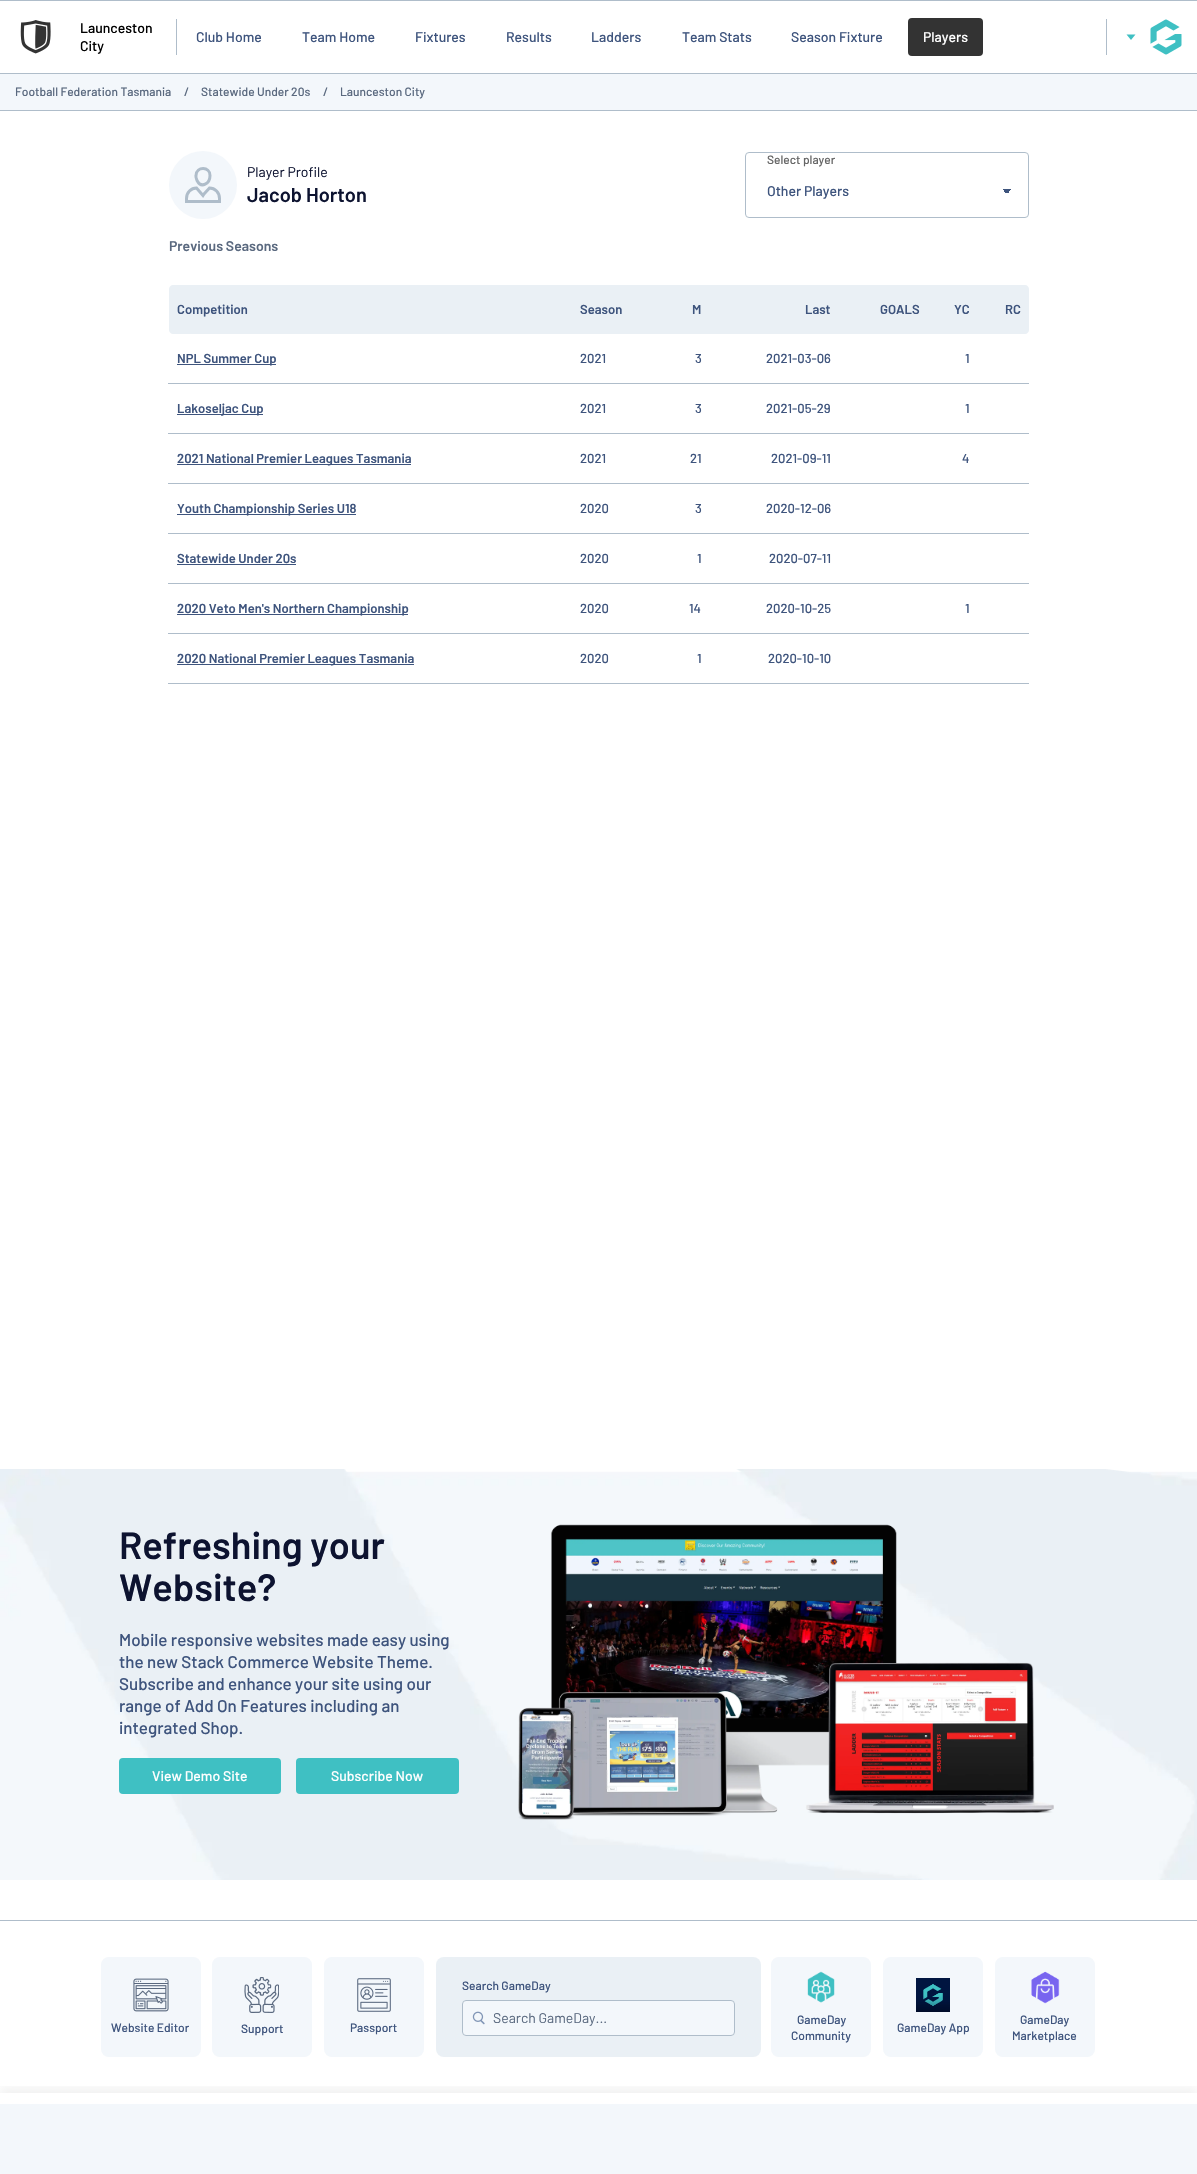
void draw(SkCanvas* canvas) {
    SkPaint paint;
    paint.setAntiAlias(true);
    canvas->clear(0xFFFFFFFF);
    paint.setColor(0xFFAFBDCA);
    canvas->drawRect(SkRect::MakeXYWH(0, 0, 1197, 1), paint);
    canvas->drawRect(SkRect::MakeXYWH(0, 73, 1197, 1), paint);
    canvas->drawImageRect(SkImages::DeferredFromEncodedData(SkData::MakeFromFileName("img1.png")), SkRect::MakeXYWH(20, 20, 31, 34), SkSamplingOptions());
    SkFont font1(fontMgr->matchFamilyStyle("Barlow", SkFontStyle(500, SkFontStyle::kNormal_Width, SkFontStyle::kUpright_Slant)), 14);
    font1.setSubpixel(true);
    paint.setColor(0xFF000000);
    canvas->drawString("Launceston", 80, 33, font1, paint);
    canvas->drawString("City", 80, 51, font1, paint);
    paint.setColor(0xFFAFBDCA);
    canvas->drawRect(SkRect::MakeXYWH(176, 19, 1, 36), paint);
    paint.setColor(0xFF3E547D);
    canvas->drawString("Club Home", 196, 42, font1, paint);
    canvas->drawString("Team Home", 302, 42, font1, paint);
    canvas->drawString("Fixtures", 415, 42, font1, paint);
    canvas->drawString("Results", 506, 42, font1, paint);
    canvas->drawString("Ladders", 591, 42, font1, paint);
    canvas->drawString("Team Stats", 682, 42, font1, paint);
    canvas->drawString("Season Fixture", 791, 42, font1, paint);
    paint.setColor(0xFF333333);
    canvas->drawRoundRect(SkRect::MakeXYWH(908, 18, 75, 38), 4, 4, paint);
    paint.setColor(0xFFFFFFFF);
    canvas->drawString("Players", 923, 42, font1, paint);
    paint.setColor(0xFFAFBDCA);
    canvas->drawRect(SkRect::MakeXYWH(1106, 19, 1, 36), paint);
    paint.setColor(0xFF3FC0C3);
    canvas->drawPath(SkPathBuilder().moveTo(1131, 40).lineTo(1135.5f, 34.5f).lineTo(1126.5f, 34.5f).close().detach(), paint);
    canvas->drawImageRect(SkImages::DeferredFromEncodedData(SkData::MakeFromFileName("img2.png")), SkRect::MakeXYWH(1150, 19, 32, 36), SkSamplingOptions());
    paint.setColor(0xFFF3F7FB);
    canvas->drawRect(SkRect::MakeXYWH(0, 74, 1197, 36), paint);
    paint.setColor(0xFFAFBDCA);
    canvas->drawRect(SkRect::MakeXYWH(0, 110, 1197, 1), paint);
    SkFont font2(fontMgr->matchFamilyStyle("Barlow", SkFontStyle(500, SkFontStyle::kNormal_Width, SkFontStyle::kUpright_Slant)), 12);
    font2.setSubpixel(true);
    paint.setColor(0xFF5A697F);
    canvas->drawString("Football Federation Tasmania", 15, 96, font2, paint);
    canvas->drawString("/", 184, 96, font2, paint);
    canvas->drawString("Statewide Under 20s", 201, 96, font2, paint);
    canvas->drawString("/", 323, 96, font2, paint);
    canvas->drawString("Launceston City", 340, 96, font2, paint);
    paint.setColor(0xFFF3F7FB);
    canvas->drawCircle(203, 185, 34, paint);
    paint.setStyle(SkPaint::kStroke_Style);
    paint.setStrokeWidth(3);
    paint.setColor(0xFFAFBDCA);
    canvas->drawPath(SkPathBuilder().moveTo(210, 175.5f).cubicTo(210, 183.5f, 201.5f, 189, 197, 180.5f).cubicTo(196.5f, 179, 195.5f, 177, 196, 175.5f).cubicTo(196.5f, 166, 210, 166.5f, 210, 175.5f).close().moveTo(204, 194).lineTo(209.5f, 188).cubicTo(215, 188, 219.5f, 192.5f, 219.5f, 198.5f).lineTo(219.5f, 201.5f).lineTo(186.5f, 201.5f).lineTo(186.5f, 198.5f).cubicTo(186.5f, 192.5f, 191, 188, 196.5f, 188).lineTo(203, 195.5f).close().detach(), paint);
    SkFont font3(fontMgr->matchFamilyStyle("Barlow", SkFontStyle::Normal()), 14);
    font3.setSubpixel(true);
    paint.setStyle(SkPaint::kFill_Style);
    paint.setColor(0xFF0D1330);
    canvas->drawString("Player Profile", 247, 177, font3, paint);
    SkFont font4(fontMgr->matchFamilyStyle("Barlow", SkFontStyle(600, SkFontStyle::kNormal_Width, SkFontStyle::kUpright_Slant)), 20);
    font4.setSubpixel(true);
    canvas->drawString("Jacob Horton", 247, 202, font4, paint);
    paint.setStyle(SkPaint::kStroke_Style);
    paint.setStrokeWidth(1);
    paint.setColor(0xFFAFBDCA);
    canvas->drawRoundRect(SkRect::MakeXYWH(745.5f, 152.5f, 283, 65), 3.5f, 3.5f, paint);
    paint.setStyle(SkPaint::kFill_Style);
    paint.setColor(0xFF666666);
    canvas->drawString("Select player", 767, 164, font2, paint);
    {
        const SkColor colors[] = {0xFF3E547D, 0xFFFFFFFF};
        const float stops[] = {0.5f, 0.5f};
        const SkPoint ends[] = {{1007, 189}, {1012, 194}};
        paint.setShader(SkGradientShader::MakeLinear(ends, colors, stops, 2, SkTileMode::kClamp));
        paint.setAlpha(255);
    }
    canvas->drawRect(SkRect::MakeXYWH(1007, 189, 5, 4), paint);
    {
        const SkColor colors[] = {0xFFFFFFFF, 0xFF3E547D};
        const float stops[] = {0.5f, 0.5f};
        const SkPoint ends[] = {{1002, 194}, {1007, 189}};
        paint.setShader(SkGradientShader::MakeLinear(ends, colors, stops, 2, SkTileMode::kClamp));
        paint.setAlpha(255);
    }
    canvas->drawRect(SkRect::MakeXYWH(1002, 189, 5, 4), paint);
    paint.setShader(nullptr);
    paint.setColor(0xFF3E547D);
    canvas->drawString("Other Players", 767, 196, font1, paint);
    SkFont font5(fontMgr->matchFamilyStyle("Barlow", SkFontStyle(600, SkFontStyle::kNormal_Width, SkFontStyle::kUpright_Slant)), 14);
    font5.setSubpixel(true);
    paint.setColor(0xFF5A697F);
    canvas->drawString("Previous Seasons", 169, 251, font5, paint);
    paint.setColor(0xFFEAF0F5);
    canvas->drawPath(SkPathBuilder().moveTo(173, 285).lineTo(572, 285).lineTo(572, 334).lineTo(173, 334).cubicTo(171, 334, 169, 332, 169, 330).lineTo(169, 289).cubicTo(169, 287, 171, 285, 173, 285).close().detach(), paint);
    SkFont font6(fontMgr->matchFamilyStyle("Barlow", SkFontStyle(600, SkFontStyle::kNormal_Width, SkFontStyle::kUpright_Slant)), 13);
    font6.setSubpixel(true);
    paint.setColor(0xFF3E547D);
    canvas->drawString("Competition", 177, 314, font6, paint);
    paint.setColor(0xFFEAF0F5);
    canvas->drawRect(SkRect::MakeXYWH(572, 285, 406, 49), paint);
    paint.setColor(0xFF3E547D);
    canvas->drawString("Season", 580, 314, font6, paint);
    canvas->drawString("M", 692, 314, font6, paint);
    canvas->drawString("Last", 805, 314, font6, paint);
    canvas->drawString("GOALS", 880, 314, font6, paint);
    canvas->drawString("YC", 954, 314, font6, paint);
    paint.setColor(0xFFEAF0F5);
    canvas->drawPath(SkPathBuilder().moveTo(978, 285).lineTo(1025, 285).cubicTo(1027, 285, 1029, 287, 1029, 289).lineTo(1029, 330).cubicTo(1029, 332, 1027, 334, 1025, 334).lineTo(978, 334).close().detach(), paint);
    paint.setColor(0xFF3E547D);
    canvas->drawString("RC", 1005, 314, font6, paint);
    canvas->drawRect(SkRect::MakeXYWH(177, 364, 99, 1), paint);
    canvas->drawString("NPL Summer Cup", 177, 363, font6, paint);
    SkFont font7(fontMgr->matchFamilyStyle("Barlow", SkFontStyle(500, SkFontStyle::kNormal_Width, SkFontStyle::kUpright_Slant)), 13);
    font7.setSubpixel(true);
    canvas->drawString("2021", 580, 363, font7, paint);
    canvas->drawString("3", 695, 363, font7, paint);
    canvas->drawString("2021-03-06", 766, 363, font7, paint);
    canvas->drawString("1", 965, 363, font7, paint);
    paint.setColor(0xFFAFBDCA);
    canvas->drawRect(SkRect::MakeXYWH(168, 383, 861, 1), paint);
    paint.setColor(0xFF3E547D);
    canvas->drawRect(SkRect::MakeXYWH(177, 414, 86, 1), paint);
    canvas->drawString("Lakoseljac Cup", 177, 413, font6, paint);
    canvas->drawString("2021", 580, 413, font7, paint);
    canvas->drawString("3", 695, 413, font7, paint);
    canvas->drawString("2021-05-29", 766, 413, font7, paint);
    canvas->drawString("1", 965, 413, font7, paint);
    paint.setColor(0xFFAFBDCA);
    canvas->drawRect(SkRect::MakeXYWH(168, 433, 861, 1), paint);
    paint.setColor(0xFF3E547D);
    canvas->drawRect(SkRect::MakeXYWH(177, 464, 234, 1), paint);
    canvas->drawString("2021 National Premier Leagues Tasmania", 177, 463, font6, paint);
    canvas->drawString("2021", 580, 463, font7, paint);
    canvas->drawString("21", 690, 463, font7, paint);
    canvas->drawString("2021-09-11", 771, 463, font7, paint);
    canvas->drawString("4", 962, 463, font7, paint);
    paint.setColor(0xFFAFBDCA);
    canvas->drawRect(SkRect::MakeXYWH(168, 483, 861, 1), paint);
    paint.setColor(0xFF3E547D);
    canvas->drawRect(SkRect::MakeXYWH(177, 514, 179, 1), paint);
    canvas->drawString("Youth Championship Series U18", 177, 513, font6, paint);
    canvas->drawString("2020", 580, 513, font7, paint);
    canvas->drawString("3", 695, 513, font7, paint);
    canvas->drawString("2020-12-06", 766, 513, font7, paint);
    paint.setColor(0xFFAFBDCA);
    canvas->drawRect(SkRect::MakeXYWH(168, 533, 861, 1), paint);
    paint.setColor(0xFF3E547D);
    canvas->drawString("Statewide Under 20s", 177, 563, font6, paint);
    canvas->drawRect(SkRect::MakeXYWH(177, 564, 119, 1), paint);
    canvas->drawString("2020", 580, 563, font7, paint);
    canvas->drawString("1", 697, 563, font7, paint);
    canvas->drawString("2020-07-11", 769, 563, font7, paint);
    paint.setColor(0xFFAFBDCA);
    canvas->drawRect(SkRect::MakeXYWH(168, 583, 861, 1), paint);
    paint.setColor(0xFF3E547D);
    canvas->drawRect(SkRect::MakeXYWH(177, 614, 231, 1), paint);
    canvas->drawString("2020 Veto Men's Northern Championship", 177, 613, font6, paint);
    canvas->drawString("2020", 580, 613, font7, paint);
    canvas->drawString("14", 689, 613, font7, paint);
    canvas->drawString("2020-10-25", 766, 613, font7, paint);
    canvas->drawString("1", 965, 613, font7, paint);
    paint.setColor(0xFFAFBDCA);
    canvas->drawRect(SkRect::MakeXYWH(168, 633, 861, 1), paint);
    paint.setColor(0xFF3E547D);
    canvas->drawRect(SkRect::MakeXYWH(177, 664, 237, 1), paint);
    canvas->drawString("2020 National Premier Leagues Tasmania", 177, 663, font6, paint);
    canvas->drawString("2020", 580, 663, font7, paint);
    canvas->drawString("1", 697, 663, font7, paint);
    canvas->drawString("2020-10-10", 768, 663, font7, paint);
    paint.setColor(0xFFAFBDCA);
    canvas->drawRect(SkRect::MakeXYWH(168, 683, 861, 1), paint);
    canvas->drawImageRect(SkImages::DeferredFromEncodedData(SkData::MakeFromFileName("img3.png")), SkRect::MakeXYWH(0, 1469, 1197, 411), SkSamplingOptions());
    SkFont font8(fontMgr->matchFamilyStyle("Barlow", SkFontStyle(600, SkFontStyle::kNormal_Width, SkFontStyle::kUpright_Slant)), 38);
    font8.setSubpixel(true);
    paint.setColor(0xFF0D1330);
    canvas->drawString("Refreshing your", 119, 1559, font8, paint);
    canvas->drawString("Website?", 119, 1601, font8, paint);
    SkFont font9(fontMgr->matchFamilyStyle("Barlow", SkFontStyle(500, SkFontStyle::kNormal_Width, SkFontStyle::kUpright_Slant)), 17);
    font9.setSubpixel(true);
    paint.setColor(0xFF3E547D);
    canvas->drawString("Mobile responsive websites made easy using", 119, 1646, font9, paint);
    canvas->drawString("the new Stack Commerce Website Theme.", 119, 1668, font9, paint);
    canvas->drawString("Subscribe and enhance your site using our", 119, 1690, font9, paint);
    canvas->drawString("range of Add On Features including an", 119, 1712, font9, paint);
    canvas->drawString("integrated Shop.", 119, 1734, font9, paint);
    paint.setColor(0xFF3FC0C3);
    canvas->drawRoundRect(SkRect::MakeXYWH(119, 1758, 162, 36), 4, 4, paint);
    paint.setColor(0xFFFFFFFF);
    canvas->drawString("View Demo Site", 152, 1781, font1, paint);
    paint.setColor(0xFF3FC0C3);
    canvas->drawRoundRect(SkRect::MakeXYWH(296, 1758, 163, 36), 4, 4, paint);
    paint.setColor(0xFFFFFFFF);
    canvas->drawString("Subscribe Now", 331, 1781, font1, paint);
    canvas->drawImageRect(SkImages::DeferredFromEncodedData(SkData::MakeFromFileName("img4.png")), SkRect::MakeXYWH(518, 1524, 536, 296), SkSamplingOptions());
    paint.setColor(0xFFAFBDCA);
    canvas->drawRect(SkRect::MakeXYWH(0, 1920, 1197, 1), paint);
    paint.setColor(0xFFEAF0F5);
    canvas->drawRoundRect(SkRect::MakeXYWH(436, 1957, 325, 100), 8, 8, paint);
    paint.setColor(0xFF3E547D);
    canvas->drawString("Search GameDay", 462, 1990, font2, paint);
    paint.setColor(0xFFF3F7FB);
    canvas->drawRoundRect(SkRect::MakeXYWH(462, 2000, 273, 36), 4, 4, paint);
    canvas->drawImageRect(SkImages::DeferredFromEncodedData(SkData::MakeFromFileName("img5.png")), SkRect::MakeXYWH(472, 2011, 13, 14), SkSamplingOptions());
    paint.setStyle(SkPaint::kStroke_Style);
    paint.setColor(0xFFAFBDCA);
    canvas->drawRoundRect(SkRect::MakeXYWH(462.5f, 2000.5f, 272, 35), 3.5f, 3.5f, paint);
    paint.setStyle(SkPaint::kFill_Style);
    paint.setColor(0xFF5A697F);
    canvas->drawString("Search GameDay...", 493, 2023, font3, paint);
    paint.setColor(0xFFF3F7FB);
    canvas->drawRoundRect(SkRect::MakeXYWH(102, 1958, 98, 98), 7, 7, paint);
    paint.setStyle(SkPaint::kStroke_Style);
    paint.setStrokeWidth(2);
    canvas->drawRoundRect(SkRect::MakeXYWH(102, 1958, 98, 98), 7, 7, paint);
    canvas->drawImageRect(SkImages::DeferredFromEncodedData(SkData::MakeFromFileName("img6.png")), SkRect::MakeXYWH(133, 1978, 36, 34), SkSamplingOptions());
    paint.setStyle(SkPaint::kFill_Style);
    paint.setColor(0xFF3E547D);
    canvas->drawString("Website Editor", 111, 2032, font2, paint);
    paint.setColor(0xFFF3F7FB);
    canvas->drawRoundRect(SkRect::MakeXYWH(213, 1958, 98, 98), 7, 7, paint);
    paint.setStyle(SkPaint::kStroke_Style);
    canvas->drawRoundRect(SkRect::MakeXYWH(213, 1958, 98, 98), 7, 7, paint);
    canvas->drawImageRect(SkImages::DeferredFromEncodedData(SkData::MakeFromFileName("img7.png")), SkRect::MakeXYWH(244, 1977, 35, 36), SkSamplingOptions());
    paint.setStyle(SkPaint::kFill_Style);
    paint.setColor(0xFF3E547D);
    canvas->drawString("Support", 241, 2033, font2, paint);
    paint.setColor(0xFFF3F7FB);
    canvas->drawRoundRect(SkRect::MakeXYWH(325, 1958, 98, 98), 7, 7, paint);
    paint.setStyle(SkPaint::kStroke_Style);
    canvas->drawRoundRect(SkRect::MakeXYWH(325, 1958, 98, 98), 7, 7, paint);
    canvas->drawImageRect(SkImages::DeferredFromEncodedData(SkData::MakeFromFileName("img8.png")), SkRect::MakeXYWH(357, 1978, 34, 34), SkSamplingOptions());
    paint.setStyle(SkPaint::kFill_Style);
    paint.setColor(0xFF3E547D);
    canvas->drawString("Passport", 350, 2032, font2, paint);
    paint.setColor(0xFFF3F7FB);
    canvas->drawRoundRect(SkRect::MakeXYWH(772, 1958, 98, 98), 7, 7, paint);
    paint.setStyle(SkPaint::kStroke_Style);
    canvas->drawRoundRect(SkRect::MakeXYWH(772, 1958, 98, 98), 7, 7, paint);
    canvas->drawImageRect(SkImages::DeferredFromEncodedData(SkData::MakeFromFileName("img9.png")), SkRect::MakeXYWH(807, 1971, 28, 32), SkSamplingOptions());
    paint.setStyle(SkPaint::kFill_Style);
    paint.setColor(0xFF3E547D);
    canvas->drawString("GameDay", 797, 2024, font2, paint);
    canvas->drawString("Community", 791, 2040, font2, paint);
    paint.setColor(0xFFF3F7FB);
    canvas->drawRoundRect(SkRect::MakeXYWH(884, 1958, 98, 98), 7, 7, paint);
    paint.setStyle(SkPaint::kStroke_Style);
    canvas->drawRoundRect(SkRect::MakeXYWH(884, 1958, 98, 98), 7, 7, paint);
    canvas->drawImageRect(SkImages::DeferredFromEncodedData(SkData::MakeFromFileName("img10.png")), SkRect::MakeXYWH(916, 1978, 34, 34), SkSamplingOptions());
    paint.setStyle(SkPaint::kFill_Style);
    paint.setColor(0xFF3E547D);
    canvas->drawString("GameDay App", 897, 2032, font2, paint);
    paint.setColor(0xFFF3F7FB);
    canvas->drawRoundRect(SkRect::MakeXYWH(996, 1958, 98, 98), 7, 7, paint);
    paint.setStyle(SkPaint::kStroke_Style);
    canvas->drawRoundRect(SkRect::MakeXYWH(996, 1958, 98, 98), 7, 7, paint);
    canvas->drawImageRect(SkImages::DeferredFromEncodedData(SkData::MakeFromFileName("img11.png")), SkRect::MakeXYWH(1031, 1971, 29, 33), SkSamplingOptions());
    paint.setStyle(SkPaint::kFill_Style);
    paint.setColor(0xFF3E547D);
    canvas->drawString("GameDay", 1020, 2024, font2, paint);
    canvas->drawString("Marketplace", 1012, 2040, font2, paint);
    canvas->save();
    canvas->clipRect(SkRect::MakeXYWH(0, 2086, 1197, 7));
    paint.setColor(0x0D000000);
    paint.setMaskFilter(SkMaskFilter::MakeBlur(kNormal_SkBlurStyle, 5));
    canvas->drawRect(SkRect::MakeXYWH(0, 2087, 1197, 81), paint);
    paint.setMaskFilter(nullptr);
    canvas->restore();
    paint.setColor(0xFFF3F7FB);
    canvas->drawRect(SkRect::MakeXYWH(0, 2104, 1197, 70), paint);
}
